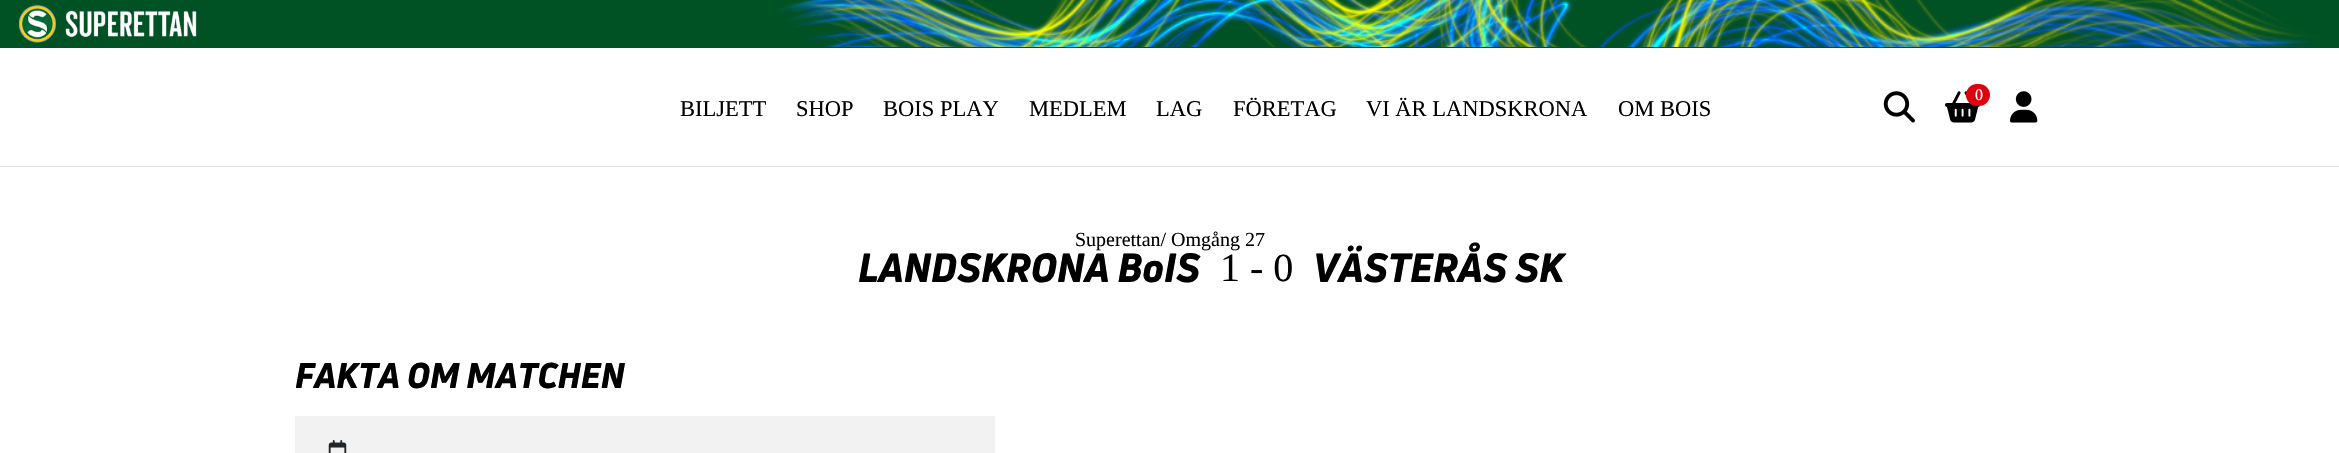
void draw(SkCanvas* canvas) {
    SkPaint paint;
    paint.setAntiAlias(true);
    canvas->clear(0xFFFFFFFF);
    paint.setColor(0xFF005123);
    canvas->drawRect(SkRect::MakeXYWH(0, 0, 2339, 48), paint);
    canvas->drawImageRect(SkImages::DeferredFromEncodedData(SkData::MakeFromFileName("img1.png")), SkRect::MakeXYWH(774, 0, 1550, 47), SkSamplingOptions());
    canvas->drawImageRect(SkImages::DeferredFromEncodedData(SkData::MakeFromFileName("img2.png")), SkRect::MakeXYWH(18, 4, 179, 39), SkSamplingOptions());
    paint.setColor(0xFFE5E5E5);
    canvas->drawRect(SkRect::MakeXYWH(0, 166, 2339, 1), paint);
    canvas->drawImageRect(SkImages::DeferredFromEncodedData(SkData::MakeFromFileName("img3.png")), SkRect::MakeXYWH(1883, 91, 32, 32), SkSamplingOptions());
    canvas->drawImageRect(SkImages::DeferredFromEncodedData(SkData::MakeFromFileName("img4.png")), SkRect::MakeXYWH(1945, 91, 36, 32), SkSamplingOptions());
    paint.setColor(0xFFDB040E);
    canvas->drawRoundRect(SkRect::MakeXYWH(1966, 84, 24, 22), 11, 11, paint);
    SkFont font1(fontMgr->matchFamilyStyle("Liberation Serif", SkFontStyle::Normal()), 16);
    font1.setSubpixel(true);
    paint.setColor(0xFFFFFFFF);
    canvas->drawString("0", 1975, 100, font1, paint);
    canvas->drawImageRect(SkImages::DeferredFromEncodedData(SkData::MakeFromFileName("img5.png")), SkRect::MakeXYWH(2010, 91, 28, 32), SkSamplingOptions());
    SkFont font2(fontMgr->matchFamilyStyle("Liberation Serif", SkFontStyle::Normal()), 22.5f);
    font2.setSubpixel(true);
    paint.setColor(0xFF000000);
    canvas->drawString("BILJETT", 680, 116, font2, paint);
    canvas->drawString("SHOP", 796, 116, font2, paint);
    canvas->drawString("BOIS PLAY", 883, 116, font2, paint);
    canvas->drawString("MEDLEM", 1029, 116, font2, paint);
    canvas->drawString("LAG", 1156, 116, font2, paint);
    canvas->drawString("FÖRETAG", 1233, 116, font2, paint);
    canvas->drawString("VI ÄR LANDSKRONA", 1366, 116, font2, paint);
    canvas->drawString("OM BOIS", 1618, 116, font2, paint);
    SkFont font3(fontMgr->matchFamilyStyle("Liberation Serif", SkFontStyle::Normal()), 20);
    font3.setSubpixel(true);
    canvas->drawString("Superettan/ Omgång 27", 1075, 246, font3, paint);
    SkFont font4(fontMgr->matchFamilyStyle("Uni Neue", SkFontStyle(800, SkFontStyle::kNormal_Width, SkFontStyle::kItalic_Slant)), 40);
    font4.setSubpixel(true);
    canvas->drawString("LANDSKRONA BoIS", 858, 282, font4, paint);
    SkFont font5(fontMgr->matchFamilyStyle("Liberation Serif", SkFontStyle::Normal()), 40);
    font5.setSubpixel(true);
    canvas->drawString("1 - 0", 1220, 281, font5, paint);
    canvas->drawString("VÄSTERÅS SK", 1313, 282, font4, paint);
    SkFont font6(fontMgr->matchFamilyStyle("Uni Neue", SkFontStyle(800, SkFontStyle::kNormal_Width, SkFontStyle::kItalic_Slant)), 35);
    font6.setSubpixel(true);
    canvas->drawString("FAKTA OM MATCHEN", 295, 388, font6, paint);
    paint.setColor(0xFFF2F2F2);
    canvas->drawRect(SkRect::MakeXYWH(295, 416, 700, 37), paint);
    canvas->drawImageRect(SkImages::DeferredFromEncodedData(SkData::MakeFromFileName("img6.png")), SkRect::MakeXYWH(328, 440, 19, 13), SkSamplingOptions());
}
